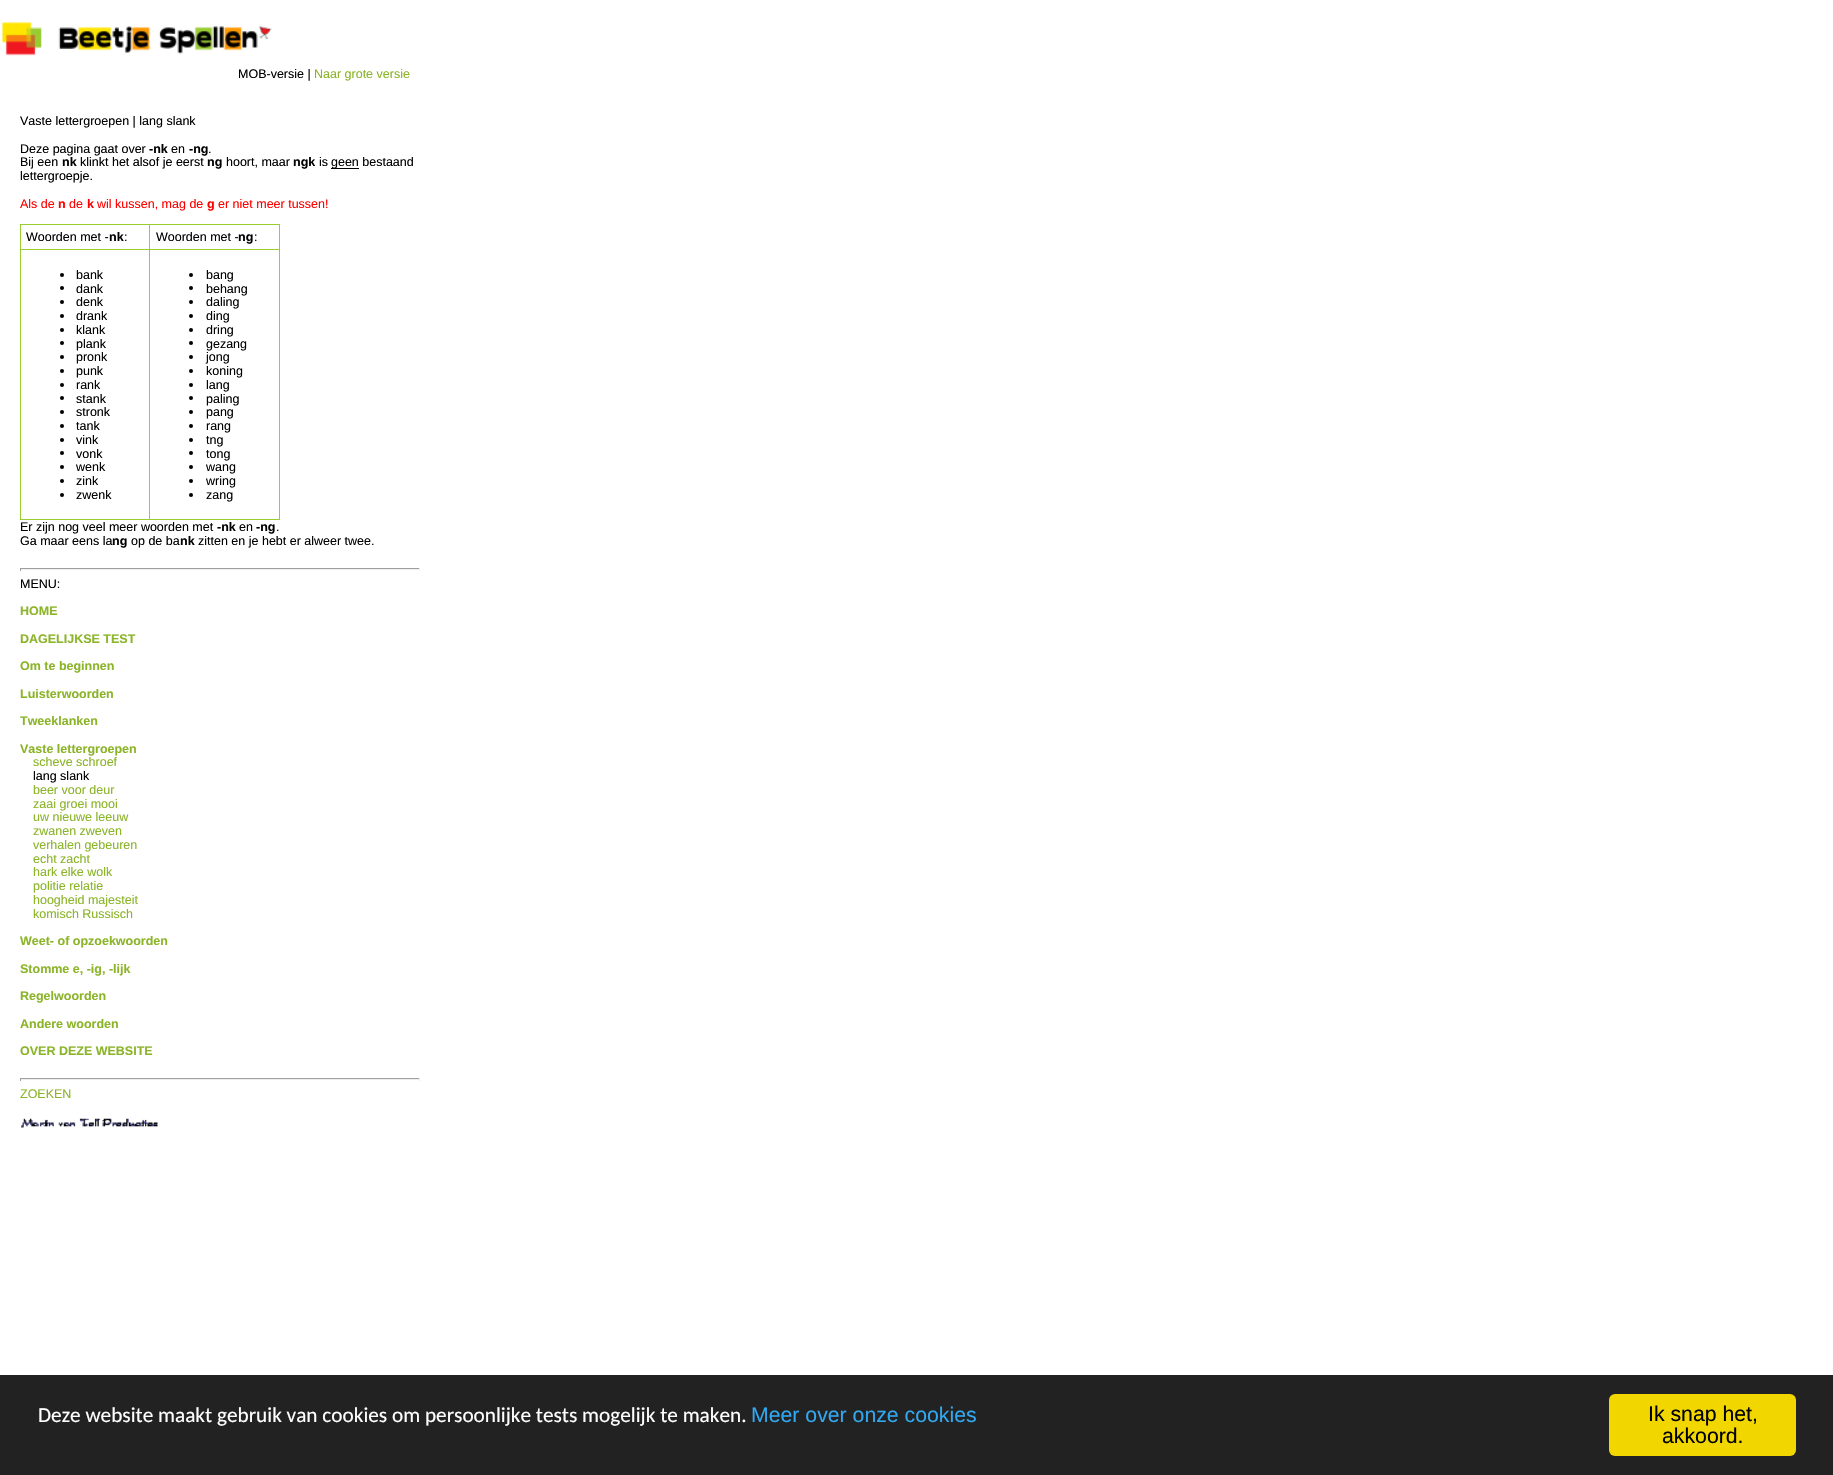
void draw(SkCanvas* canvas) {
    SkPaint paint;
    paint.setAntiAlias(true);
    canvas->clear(0xFFFFFFFF);
    canvas->drawImageRect(SkImages::DeferredFromEncodedData(SkData::MakeFromFileName("img1.png")), SkRect::MakeXYWH(1, 22, 271, 34), SkSamplingOptions());
    SkFont font1(fontMgr->matchFamilyStyle("Liberation Sans", SkFontStyle::Normal()), 12.5f);
    font1.setSubpixel(true);
    paint.setColor(0xFF000000);
    canvas->drawString("MOB-versie |", 238, 78, font1, paint);
    paint.setColor(0xFF8BB428);
    canvas->drawString("Naar grote versie", 314, 78, font1, paint);
    paint.setColor(0xFF000000);
    canvas->drawString("Vaste lettergroepen | lang slank", 20, 125, font1, paint);
    canvas->drawString("Deze pagina gaat over", 20, 153, font1, paint);
    SkFont font2(fontMgr->matchFamilyStyle("Liberation Sans", SkFontStyle::Bold()), 12.5f);
    font2.setSubpixel(true);
    canvas->drawString("-nk", 149, 153, font2, paint);
    canvas->drawString("en", 171, 153, font1, paint);
    canvas->drawString("-ng", 189, 153, font2, paint);
    canvas->drawString(".", 208, 153, font1, paint);
    canvas->drawString("Bij een", 20, 166, font1, paint);
    canvas->drawString("nk", 62, 166, font2, paint);
    canvas->drawString("klinkt het alsof je eerst", 80, 166, font1, paint);
    canvas->drawString("ng", 207, 166, font2, paint);
    canvas->drawString("hoort, maar", 226, 166, font1, paint);
    canvas->drawString("ngk", 293, 166, font2, paint);
    canvas->drawString("is", 319, 166, font1, paint);
    canvas->drawRect(SkRect::MakeXYWH(331, 168, 28, 1), paint);
    canvas->drawString("geen bestaand", 331, 166, font1, paint);
    canvas->drawString("lettergroepje.", 20, 180, font1, paint);
    paint.setColor(0xFFFF0000);
    canvas->drawString("Als de", 20, 208, font1, paint);
    canvas->drawString("n", 58, 208, font2, paint);
    canvas->drawString("de", 69, 208, font1, paint);
    canvas->drawString("k", 87, 208, font2, paint);
    canvas->drawString("wil kussen, mag de", 97, 208, font1, paint);
    canvas->drawString("g", 207, 208, font2, paint);
    canvas->drawString("er niet meer tussen!", 218, 208, font1, paint);
    paint.setColor(0xFF9ACD32);
    canvas->drawRect(SkRect::MakeXYWH(20, 224, 260, 1), paint);
    canvas->drawRect(SkRect::MakeXYWH(279, 224, 1, 296), paint);
    canvas->drawRect(SkRect::MakeXYWH(20, 519, 260, 1), paint);
    canvas->drawRect(SkRect::MakeXYWH(20, 224, 1, 296), paint);
    paint.setColor(0xFF000000);
    canvas->drawString("Woorden met -", 26, 241, font1, paint);
    canvas->drawString("nk", 109, 241, font2, paint);
    canvas->drawString(":", 124, 241, font1, paint);
    paint.setColor(0xFF9ACD32);
    canvas->drawRect(SkRect::MakeXYWH(149, 249, 131, 1), paint);
    canvas->drawRect(SkRect::MakeXYWH(149, 249, 1, 271), paint);
    canvas->drawRect(SkRect::MakeXYWH(20, 249, 130, 1), paint);
    canvas->drawRect(SkRect::MakeXYWH(149, 224, 1, 26), paint);
    paint.setColor(0xFF000000);
    canvas->drawString("Woorden met -", 156, 241, font1, paint);
    canvas->drawString("ng", 238, 241, font2, paint);
    canvas->drawString(":", 254, 241, font1, paint);
    canvas->drawCircle(62, 275, 2, paint);
    canvas->drawString("bank", 76, 279, font1, paint);
    canvas->drawCircle(62, 288, 2, paint);
    canvas->drawString("dank", 76, 293, font1, paint);
    canvas->drawCircle(62, 302, 2, paint);
    canvas->drawString("denk", 76, 306, font1, paint);
    canvas->drawCircle(62, 316, 2, paint);
    canvas->drawString("drank", 76, 320, font1, paint);
    canvas->drawCircle(62, 330, 2, paint);
    canvas->drawString("klank", 76, 334, font1, paint);
    canvas->drawCircle(62, 343, 2, paint);
    canvas->drawString("plank", 76, 348, font1, paint);
    canvas->drawCircle(62, 357, 2, paint);
    canvas->drawString("pronk", 76, 361, font1, paint);
    canvas->drawCircle(62, 371, 2, paint);
    canvas->drawString("punk", 76, 375, font1, paint);
    canvas->drawCircle(62, 385, 2, paint);
    canvas->drawString("rank", 76, 389, font1, paint);
    canvas->drawCircle(62, 398, 2, paint);
    canvas->drawString("stank", 76, 403, font1, paint);
    canvas->drawCircle(62, 412, 2, paint);
    canvas->drawString("stronk", 76, 416, font1, paint);
    canvas->drawCircle(62, 426, 2, paint);
    canvas->drawString("tank", 76, 430, font1, paint);
    canvas->drawCircle(62, 440, 2, paint);
    canvas->drawString("vink", 76, 444, font1, paint);
    canvas->drawCircle(62, 453, 2, paint);
    canvas->drawString("vonk", 76, 458, font1, paint);
    canvas->drawCircle(62, 467, 2, paint);
    canvas->drawString("wenk", 76, 471, font1, paint);
    canvas->drawCircle(62, 481, 2, paint);
    canvas->drawString("zink", 76, 485, font1, paint);
    canvas->drawCircle(62, 495, 2, paint);
    canvas->drawString("zwenk", 76, 499, font1, paint);
    canvas->drawCircle(191, 275, 2, paint);
    canvas->drawString("bang", 206, 279, font1, paint);
    canvas->drawCircle(191, 288, 2, paint);
    canvas->drawString("behang", 206, 293, font1, paint);
    canvas->drawCircle(191, 302, 2, paint);
    canvas->drawString("daling", 206, 306, font1, paint);
    canvas->drawCircle(191, 316, 2, paint);
    canvas->drawString("ding", 206, 320, font1, paint);
    canvas->drawCircle(191, 330, 2, paint);
    canvas->drawString("dring", 206, 334, font1, paint);
    canvas->drawCircle(191, 343, 2, paint);
    canvas->drawString("gezang", 206, 348, font1, paint);
    canvas->drawCircle(191, 357, 2, paint);
    canvas->drawString("jong", 206, 361, font1, paint);
    canvas->drawCircle(191, 371, 2, paint);
    canvas->drawString("koning", 206, 375, font1, paint);
    canvas->drawCircle(191, 385, 2, paint);
    canvas->drawString("lang", 206, 389, font1, paint);
    canvas->drawCircle(191, 398, 2, paint);
    canvas->drawString("paling", 206, 403, font1, paint);
    canvas->drawCircle(191, 412, 2, paint);
    canvas->drawString("pang", 206, 416, font1, paint);
    canvas->drawCircle(191, 426, 2, paint);
    canvas->drawString("rang", 206, 430, font1, paint);
    canvas->drawCircle(191, 440, 2, paint);
    canvas->drawString("tng", 206, 444, font1, paint);
    canvas->drawCircle(191, 453, 2, paint);
    canvas->drawString("tong", 206, 458, font1, paint);
    canvas->drawCircle(191, 467, 2, paint);
    canvas->drawString("wang", 206, 471, font1, paint);
    canvas->drawCircle(191, 481, 2, paint);
    canvas->drawString("wring", 206, 485, font1, paint);
    canvas->drawCircle(191, 495, 2, paint);
    canvas->drawString("zang", 206, 499, font1, paint);
    canvas->drawString("Er zijn nog veel meer woorden met", 20, 531, font1, paint);
    canvas->drawString("-nk", 217, 531, font2, paint);
    canvas->drawString("en", 239, 531, font1, paint);
    canvas->drawString("-ng", 256, 531, font2, paint);
    canvas->drawString(".", 276, 531, font1, paint);
    canvas->drawString("Ga maar eens la", 20, 545, font1, paint);
    canvas->drawString("ng", 112, 545, font2, paint);
    canvas->drawString("op de ba", 131, 545, font1, paint);
    canvas->drawString("nk", 180, 545, font2, paint);
    canvas->drawString("zitten en je hebt er alweer twee.", 198, 545, font1, paint);
    paint.setColor(0xFF9F9F9F);
    canvas->drawRect(SkRect::MakeXYWH(20, 568, 400, 1), paint);
    paint.setColor(0xFFEEEEEE);
    canvas->drawRect(SkRect::MakeXYWH(419, 568, 1, 3), paint);
    canvas->drawRect(SkRect::MakeXYWH(20, 569, 400, 1), paint);
    paint.setColor(0xFF9F9F9F);
    canvas->drawRect(SkRect::MakeXYWH(20, 568, 1, 3), paint);
    paint.setColor(0xFF000000);
    canvas->drawString("MENU:", 20, 588, font1, paint);
    paint.setColor(0xFF8BB428);
    canvas->drawString("HOME", 20, 615, font2, paint);
    canvas->drawString("DAGELIJKSE TEST", 20, 643, font2, paint);
    canvas->drawString("Om te beginnen", 20, 670, font2, paint);
    canvas->drawString("Luisterwoorden", 20, 698, font2, paint);
    canvas->drawString("Tweeklanken", 20, 725, font2, paint);
    canvas->drawString("Vaste lettergroepen", 20, 753, font2, paint);
    canvas->drawString("scheve schroef", 33, 766, font1, paint);
    paint.setColor(0xFF000000);
    canvas->drawString("lang slank", 33, 780, font1, paint);
    paint.setColor(0xFF8BB428);
    canvas->drawString("beer voor deur", 33, 794, font1, paint);
    canvas->drawString("zaai groei mooi", 33, 808, font1, paint);
    canvas->drawString("uw nieuwe leeuw", 33, 821, font1, paint);
    canvas->drawString("zwanen zweven", 33, 835, font1, paint);
    canvas->drawString("verhalen gebeuren", 33, 849, font1, paint);
    canvas->drawString("echt zacht", 33, 863, font1, paint);
    canvas->drawString("hark elke wolk", 33, 876, font1, paint);
    canvas->drawString("politie relatie", 33, 890, font1, paint);
    canvas->drawString("hoogheid majesteit", 33, 904, font1, paint);
    canvas->drawString("komisch Russisch", 33, 918, font1, paint);
    canvas->drawString("Weet- of opzoekwoorden", 20, 945, font2, paint);
    canvas->drawString("Stomme e, -ig, -lijk", 20, 973, font2, paint);
    canvas->drawString("Regelwoorden", 20, 1000, font2, paint);
    canvas->drawString("Andere woorden", 20, 1028, font2, paint);
    canvas->drawString("OVER DEZE WEBSITE", 20, 1055, font2, paint);
    paint.setColor(0xFF9F9F9F);
    canvas->drawRect(SkRect::MakeXYWH(20, 1078, 400, 1), paint);
    paint.setColor(0xFFEEEEEE);
    canvas->drawRect(SkRect::MakeXYWH(419, 1078, 1, 3), paint);
    canvas->drawRect(SkRect::MakeXYWH(20, 1079, 400, 1), paint);
    paint.setColor(0xFF9F9F9F);
    canvas->drawRect(SkRect::MakeXYWH(20, 1078, 1, 3), paint);
    paint.setColor(0xFF8BB428);
    canvas->drawString("ZOEKEN", 20, 1098, font1, paint);
    canvas->drawImageRect(SkImages::DeferredFromEncodedData(SkData::MakeFromFileName("img2.png")), SkRect::MakeXYWH(21, 1118, 137, 10), SkSamplingOptions());
    paint.setColor(0xFF222222);
    canvas->drawRect(SkRect::MakeXYWH(0, 1375, 1833, 100), paint);
    SkFont font3(fontMgr->matchFamilyStyle("Carlito", SkFontStyle::Normal()), 21.25f);
    font3.setSubpixel(true);
    paint.setColor(0xFFFFFFFF);
    canvas->drawString("Deze website maakt gebruik van cookies om persoonlijke tests mogelijk te maken.", 38, 1422, font3, paint);
    SkFont font4(fontMgr->matchFamilyStyle("Liberation Sans", SkFontStyle::Normal()), 21.25f);
    font4.setSubpixel(true);
    paint.setColor(0xFF31A8F0);
    canvas->drawString("Meer over onze cookies", 751, 1422, font4, paint);
    paint.setColor(0xFFF1D600);
    canvas->drawRoundRect(SkRect::MakeXYWH(1609, 1394, 187, 62), 6, 6, paint);
    paint.setColor(0xFF000000);
    canvas->drawString("Ik snap het,", 1648, 1421, font4, paint);
    canvas->drawString("akkoord.", 1662, 1443, font4, paint);
}
